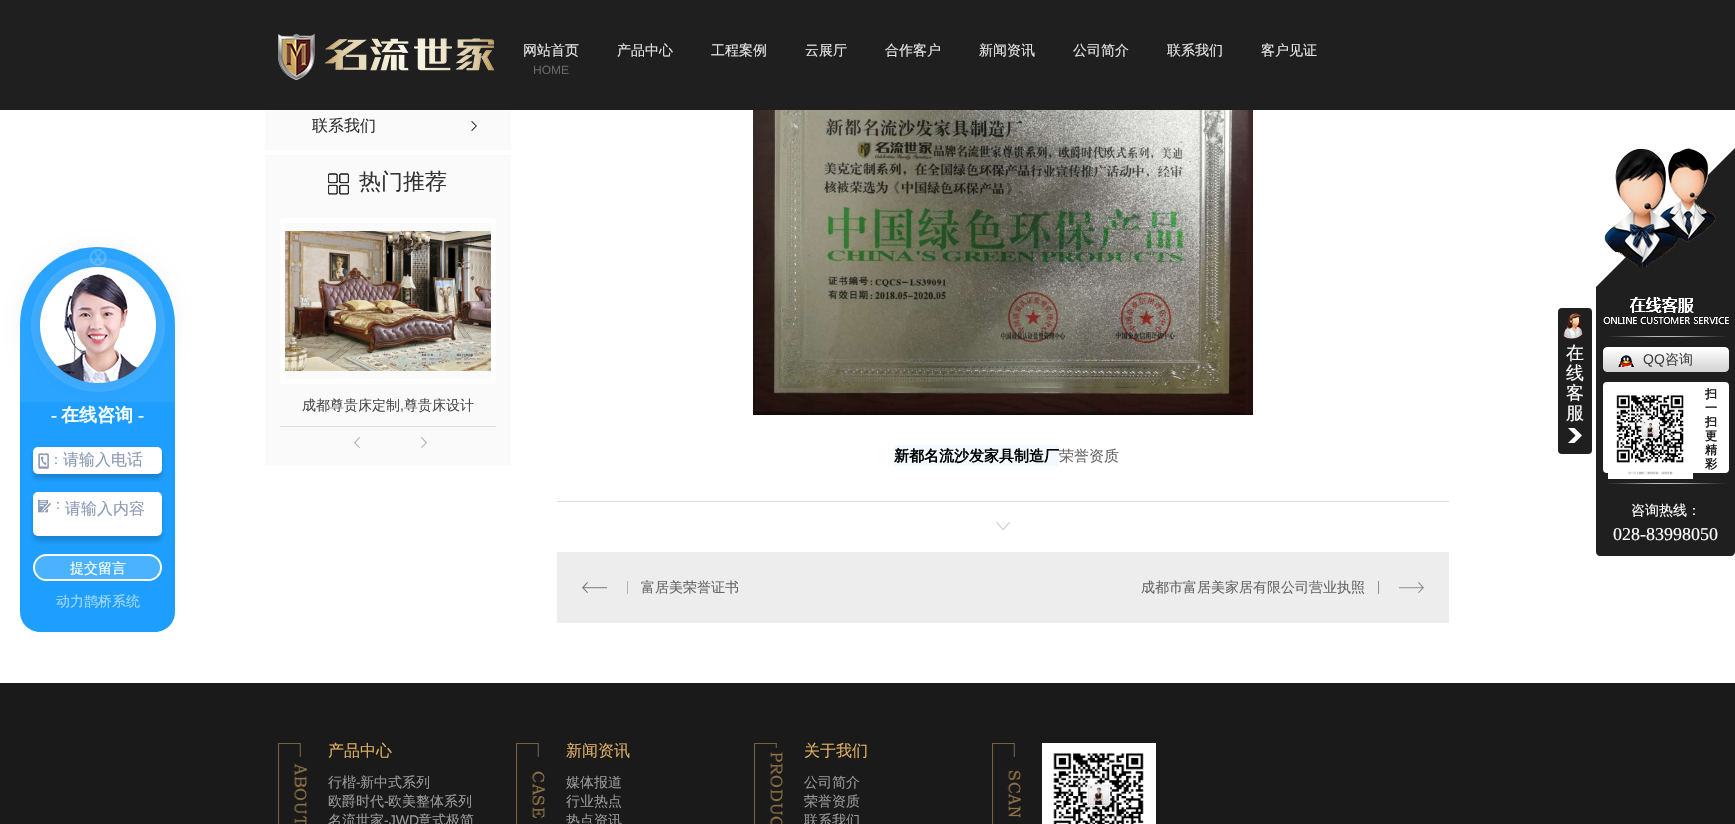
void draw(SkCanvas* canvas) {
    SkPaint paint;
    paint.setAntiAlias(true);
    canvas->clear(0xFFFFFFFF);
    paint.setColor(0xFF1F1F1F);
    canvas->drawRect(SkRect::MakeXYWH(0, 0, 1735, 110), paint);
    canvas->drawImageRect(SkImages::DeferredFromEncodedData(SkData::MakeFromFileName("img1.png")), SkRect::MakeXYWH(278, 34, 216, 46), SkSamplingOptions());
    SkFont font1(fontMgr->matchFamilyStyle("WenQuanYi Zen Hei", SkFontStyle(500, SkFontStyle::kNormal_Width, SkFontStyle::kUpright_Slant)), 14);
    font1.setSubpixel(true);
    paint.setColor(0xFFE5E5E5);
    canvas->drawString("网站首页", 523, 55, font1, paint);
    SkFont font2(fontMgr->matchFamilyStyle("Liberation Sans", SkFontStyle::Normal()), 12);
    font2.setSubpixel(true);
    paint.setColor(0xFF666666);
    canvas->drawString("HOME", 533, 74, font2, paint);
    paint.setColor(0xFFE5E5E5);
    canvas->drawString("产品中心", 617, 55, font1, paint);
    canvas->drawString("工程案例", 711, 55, font1, paint);
    canvas->drawString("云展厅", 805, 55, font1, paint);
    canvas->drawString("合作客户", 885, 55, font1, paint);
    canvas->drawString("新闻资讯", 979, 55, font1, paint);
    canvas->drawString("公司简介", 1073, 55, font1, paint);
    canvas->drawString("联系我们", 1167, 55, font1, paint);
    canvas->drawString("客户见证", 1261, 55, font1, paint);
    paint.setColor(0x0D000000);
    paint.setMaskFilter(SkMaskFilter::MakeBlur(kNormal_SkBlurStyle, 7.5f));
    canvas->drawRoundRect(SkRect::MakeXYWH(20, 247, 155, 155), 77.5f, 77.5f, paint);
    paint.setMaskFilter(nullptr);
    paint.setColor(0xFF1E9FFF);
    canvas->drawPath(SkPathBuilder().moveTo(97.5f, 247).cubicTo(140.5f, 247, 175, 281.5f, 175, 324.5f).lineTo(175, 402).lineTo(20, 402).lineTo(20, 324.5f).cubicTo(20, 281.5f, 54.5f, 247, 97.5f, 247).close().detach(), paint);
    paint.setColor(0x0DFFFFFF);
    canvas->drawRect(SkRect::MakeXYWH(20, 247, 155, 155), paint);
    paint.setColor(0x1AFFFFFF);
    canvas->drawCircle(98, 325, 67, paint);
    paint.setColor(0xFF1E9FFF);
    canvas->drawPath(SkPathBuilder().moveTo(20, 402).lineTo(175, 402).lineTo(175, 612).cubicTo(175, 623, 166, 632, 155, 632).lineTo(40, 632).cubicTo(29, 632, 20, 623, 20, 612).close().detach(), paint);
    paint.setColor(0x0D000000);
    paint.setMaskFilter(SkMaskFilter::MakeBlur(kNormal_SkBlurStyle, 7.5f));
    canvas->drawRoundRect(SkRect::MakeXYWH(40, 267, 116, 116), 58, 58, paint);
    paint.setMaskFilter(nullptr);
    canvas->drawImageRect(SkImages::DeferredFromEncodedData(SkData::MakeFromFileName("img2.png")), SkRect::MakeXYWH(40, 267, 116, 116), SkSamplingOptions());
    canvas->drawImageRect(SkImages::DeferredFromEncodedData(SkData::MakeFromFileName("img3.png")), SkRect::MakeXYWH(89, 249, 18, 17), SkSamplingOptions());
    SkFont font3(fontMgr->matchFamilyStyle("Liberation Serif", SkFontStyle::Bold()), 18);
    font3.setSubpixel(true);
    paint.setColor(0xFFFFFFFF);
    canvas->drawString("-", 51, 421, font3, paint);
    SkFont font4(fontMgr->matchFamilyStyle("WenQuanYi Zen Hei", SkFontStyle::Bold()), 18);
    font4.setSubpixel(true);
    canvas->drawString("在线咨询", 61, 421, font4, paint);
    canvas->drawString("-", 138, 421, font3, paint);
    paint.setColor(0x2B000000);
    paint.setMaskFilter(SkMaskFilter::MakeBlur(kNormal_SkBlurStyle, 2.5f));
    canvas->drawRoundRect(SkRect::MakeXYWH(33, 452, 129, 27), 5, 5, paint);
    paint.setMaskFilter(nullptr);
    paint.setColor(0xFFFFFFFF);
    canvas->drawRoundRect(SkRect::MakeXYWH(33, 447, 129, 27), 5, 5, paint);
    canvas->drawImageRect(SkImages::DeferredFromEncodedData(SkData::MakeFromFileName("img4.png")), SkRect::MakeXYWH(38, 453, 11, 16), SkSamplingOptions());
    paint.setColor(0xFF8A99B4);
    canvas->drawString("：", 49, 464, font1, paint);
    SkFont font5(fontMgr->matchFamilyStyle("WenQuanYi Zen Hei", SkFontStyle(500, SkFontStyle::kNormal_Width, SkFontStyle::kUpright_Slant)), 16);
    font5.setSubpixel(true);
    canvas->drawString("请输入电话", 63, 465, font5, paint);
    paint.setColor(0x2B000000);
    paint.setMaskFilter(SkMaskFilter::MakeBlur(kNormal_SkBlurStyle, 2.5f));
    canvas->drawRoundRect(SkRect::MakeXYWH(33, 497, 129, 44), 5, 5, paint);
    paint.setMaskFilter(nullptr);
    paint.setColor(0xFFFFFFFF);
    canvas->drawRoundRect(SkRect::MakeXYWH(33, 492, 129, 44), 5, 5, paint);
    canvas->drawImageRect(SkImages::DeferredFromEncodedData(SkData::MakeFromFileName("img5.png")), SkRect::MakeXYWH(38, 500, 13, 13), SkSamplingOptions());
    paint.setColor(0xFF8A99B4);
    canvas->drawString("：", 51, 509, font1, paint);
    canvas->drawString("请输入内容", 65, 514, font5, paint);
    paint.setColor(0xFF4BB2FF);
    canvas->drawRoundRect(SkRect::MakeXYWH(34, 555, 127, 25), 12.5f, 12.5f, paint);
    paint.setStyle(SkPaint::kStroke_Style);
    paint.setStrokeWidth(2);
    paint.setColor(0xFFFFFFFF);
    canvas->drawRoundRect(SkRect::MakeXYWH(34, 555, 127, 25), 12.5f, 12.5f, paint);
    paint.setStyle(SkPaint::kFill_Style);
    canvas->drawString("提交留言", 70, 573, font1, paint);
    paint.setColor(0xFFA5D9FF);
    canvas->drawString("动力鹊桥系统", 56, 606, font1, paint);
    paint.setColor(0xFFFAFAFA);
    canvas->drawRect(SkRect::MakeXYWH(265, 110, 246, 40), paint);
    canvas->drawImageRect(SkImages::DeferredFromEncodedData(SkData::MakeFromFileName("img6.png")), SkRect::MakeXYWH(471, 121, 6, 10), SkSamplingOptions());
    paint.setColor(0xFF333333);
    canvas->drawString("联系我们", 312, 131, font5, paint);
    paint.setColor(0xFFFAFAFA);
    canvas->drawRect(SkRect::MakeXYWH(265, 155, 246, 311), paint);
    canvas->drawImageRect(SkImages::DeferredFromEncodedData(SkData::MakeFromFileName("img7.png")), SkRect::MakeXYWH(328, 173, 21, 22), SkSamplingOptions());
    SkFont font6(fontMgr->matchFamilyStyle("WenQuanYi Zen Hei", SkFontStyle(500, SkFontStyle::kNormal_Width, SkFontStyle::kUpright_Slant)), 22);
    font6.setSubpixel(true);
    paint.setColor(0xFF333333);
    canvas->drawString("热门推荐", 359, 189, font6, paint);
    paint.setStyle(SkPaint::kStroke_Style);
    paint.setStrokeWidth(5);
    paint.setColor(0xFFFFFFFF);
    canvas->drawRect(SkRect::MakeXYWH(282.5f, 220.5f, 211, 161), paint);
    canvas->drawImageRect(SkImages::DeferredFromEncodedData(SkData::MakeFromFileName("img8.png")), SkRect::MakeXYWH(285, 231, 206, 140), SkSamplingOptions());
    paint.setStyle(SkPaint::kFill_Style);
    paint.setColor(0xFFDEDEDD);
    canvas->drawRect(SkRect::MakeXYWH(280, 426, 216, 1), paint);
    paint.setColor(0xFF4C4C4C);
    canvas->drawString("成都尊贵床定制", 302, 410, font1, paint);
    SkFont font7(fontMgr->matchFamilyStyle("Liberation Sans", SkFontStyle::Normal()), 14);
    font7.setSubpixel(true);
    canvas->drawString(",", 400, 410, font7, paint);
    canvas->drawString("尊贵床设计", 404, 410, font1, paint);
    canvas->drawImageRect(SkImages::DeferredFromEncodedData(SkData::MakeFromFileName("img9.png")), SkRect::MakeXYWH(354, 437, 6, 11), SkSamplingOptions());
    canvas->drawImageRect(SkImages::DeferredFromEncodedData(SkData::MakeFromFileName("img10.png")), SkRect::MakeXYWH(421, 437, 6, 11), SkSamplingOptions());
    paint.setColor(0xFFDDDDDD);
    canvas->drawRect(SkRect::MakeXYWH(557, 501, 892, 1), paint);
    canvas->drawImageRect(SkImages::DeferredFromEncodedData(SkData::MakeFromFileName("img11.png")), SkRect::MakeXYWH(753, 110, 500, 305), SkSamplingOptions());
    paint.setColor(0xFFF3F9FE);
    canvas->drawRect(SkRect::MakeXYWH(894, 445, 165, 21), paint);
    SkFont font8(fontMgr->matchFamilyStyle("WenQuanYi Zen Hei", SkFontStyle::Bold()), 15);
    font8.setSubpixel(true);
    paint.setColor(0xFF000000);
    canvas->drawString("新都名流沙发家具制造厂", 894, 461, font8, paint);
    SkFont font9(fontMgr->matchFamilyStyle("WenQuanYi Zen Hei", SkFontStyle(500, SkFontStyle::kNormal_Width, SkFontStyle::kUpright_Slant)), 15);
    font9.setSubpixel(true);
    paint.setColor(0xFF666666);
    canvas->drawString("荣誉资质", 1059, 461, font9, paint);
    canvas->drawImageRect(SkImages::DeferredFromEncodedData(SkData::MakeFromFileName("img12.png")), SkRect::MakeXYWH(996, 522, 14, 8), SkSamplingOptions());
    paint.setColor(0xFFEDEDED);
    canvas->drawRect(SkRect::MakeXYWH(557, 552, 892, 71), paint);
    canvas->drawImageRect(SkImages::DeferredFromEncodedData(SkData::MakeFromFileName("img13.png")), SkRect::MakeXYWH(582, 581, 46, 13), SkSamplingOptions());
    paint.setColor(0xFF666666);
    canvas->drawString("富居美荣誉证书", 641, 592, font1, paint);
    canvas->drawImageRect(SkImages::DeferredFromEncodedData(SkData::MakeFromFileName("img14.png")), SkRect::MakeXYWH(1378, 581, 46, 13), SkSamplingOptions());
    canvas->drawString("成都市富居美家居有限公司营业执照", 1141, 592, font1, paint);
    paint.setColor(0xFF1F1F1F);
    canvas->drawRoundRect(SkRect::MakeXYWH(1558, 308, 34, 146), 4, 4, paint);
    canvas->drawImageRect(SkImages::DeferredFromEncodedData(SkData::MakeFromFileName("img15.png")), SkRect::MakeXYWH(1568, 428, 14, 15), SkSamplingOptions());
    canvas->drawImageRect(SkImages::DeferredFromEncodedData(SkData::MakeFromFileName("img16.png")), SkRect::MakeXYWH(1561, 313, 22, 26), SkSamplingOptions());
    SkFont font10(fontMgr->matchFamilyStyle("WenQuanYi Zen Hei", SkFontStyle(500, SkFontStyle::kNormal_Width, SkFontStyle::kUpright_Slant)), 18);
    font10.setSubpixel(true);
    paint.setColor(0xFFFFFFFF);
    canvas->drawString("在", 1566, 359, font10, paint);
    canvas->drawString("线", 1566, 379, font10, paint);
    canvas->drawString("客", 1566, 399, font10, paint);
    canvas->drawString("服", 1566, 419, font10, paint);
    paint.setColor(0xFF1F1F1F);
    canvas->drawPath(SkPathBuilder().moveTo(1735, 148).lineTo(1596, 287).lineTo(1735, 287).close().detach(), paint);
    canvas->drawImageRect(SkImages::DeferredFromEncodedData(SkData::MakeFromFileName("img17.png")), SkRect::MakeXYWH(1604, 148, 112, 119), SkSamplingOptions());
    canvas->drawPath(SkPathBuilder().moveTo(1596, 287).lineTo(1735, 287).lineTo(1735, 552).cubicTo(1735, 554, 1733, 556, 1731, 556).lineTo(1600, 556).cubicTo(1598, 556, 1596, 554, 1596, 552).close().detach(), paint);
    canvas->drawImageRect(SkImages::DeferredFromEncodedData(SkData::MakeFromFileName("img18.png")), SkRect::MakeXYWH(1603, 297, 126, 27), SkSamplingOptions());
    canvas->drawImageRect(SkImages::DeferredFromEncodedData(SkData::MakeFromFileName("img19.png")), SkRect::MakeXYWH(1608, 336, 118, 1), SkSamplingOptions());
    canvas->drawImageRect(SkImages::DeferredFromEncodedData(SkData::MakeFromFileName("img20.png")), SkRect::MakeXYWH(1603, 347, 126, 25), SkSamplingOptions());
    canvas->drawImageRect(SkImages::DeferredFromEncodedData(SkData::MakeFromFileName("img21.png")), SkRect::MakeXYWH(1618, 355, 16, 12), SkSamplingOptions());
    paint.setColor(0xFF404040);
    canvas->drawString("QQ", 1643, 364, font7, paint);
    canvas->drawString("咨询", 1665, 364, font1, paint);
    paint.setColor(0xFFFFFFFF);
    canvas->drawRoundRect(SkRect::MakeXYWH(1603, 382, 126, 91), 4, 4, paint);
    canvas->drawImageRect(SkImages::DeferredFromEncodedData(SkData::MakeFromFileName("img22.png")), SkRect::MakeXYWH(1608, 395, 85, 84), SkSamplingOptions());
    SkFont font11(fontMgr->matchFamilyStyle("WenQuanYi Zen Hei", SkFontStyle::Bold()), 12);
    font11.setSubpixel(true);
    paint.setColor(0xFF1F1F1F);
    canvas->drawString("扫", 1705, 398, font11, paint);
    canvas->drawString("一", 1705, 412, font11, paint);
    canvas->drawString("扫", 1705, 426, font11, paint);
    canvas->drawString("更", 1705, 440, font11, paint);
    canvas->drawString("精", 1705, 454, font11, paint);
    canvas->drawString("彩", 1705, 468, font11, paint);
    canvas->drawImageRect(SkImages::DeferredFromEncodedData(SkData::MakeFromFileName("img19.png")), SkRect::MakeXYWH(1608, 483, 118, 1), SkSamplingOptions());
    paint.setColor(0xFFFFFFFF);
    canvas->drawString("咨询热线：", 1631, 515, font1, paint);
    SkFont font12(fontMgr->matchFamilyStyle("Liberation Serif", SkFontStyle::Normal()), 18);
    font12.setSubpixel(true);
    canvas->drawString("028-83998050", 1613, 540, font12, paint);
    paint.setColor(0xFF1A1A1A);
    canvas->drawRect(SkRect::MakeXYWH(0, 683, 1735, 141), paint);
    canvas->drawImageRect(SkImages::DeferredFromEncodedData(SkData::MakeFromFileName("img23.png")), SkRect::MakeXYWH(278, 743, 29, 81), SkSamplingOptions());
    paint.setColor(0xFFDDAF64);
    canvas->drawString("产品中心", 328, 756, font5, paint);
    paint.setColor(0xFF999999);
    canvas->drawString("行楷", 328, 787, font1, paint);
    canvas->drawString("-", 356, 787, font7, paint);
    canvas->drawString("新中式系列", 360, 787, font1, paint);
    canvas->drawString("欧爵时代", 328, 806, font1, paint);
    canvas->drawString("-", 384, 806, font7, paint);
    canvas->drawString("欧美整体系列", 388, 806, font1, paint);
    canvas->drawString("名流世家", 328, 825, font1, paint);
    canvas->drawString("-JWD", 384, 825, font7, paint);
    canvas->drawString("意式极简", 418, 825, font1, paint);
    canvas->drawImageRect(SkImages::DeferredFromEncodedData(SkData::MakeFromFileName("img24.png")), SkRect::MakeXYWH(516, 743, 29, 81), SkSamplingOptions());
    paint.setColor(0xFFDDAF64);
    canvas->drawString("新闻资讯", 566, 756, font5, paint);
    paint.setColor(0xFF999999);
    canvas->drawString("媒体报道", 566, 787, font1, paint);
    canvas->drawString("行业热点", 566, 806, font1, paint);
    canvas->drawString("热点资讯", 566, 825, font1, paint);
    canvas->drawImageRect(SkImages::DeferredFromEncodedData(SkData::MakeFromFileName("img25.png")), SkRect::MakeXYWH(754, 743, 29, 81), SkSamplingOptions());
    paint.setColor(0xFFDDAF64);
    canvas->drawString("关于我们", 804, 756, font5, paint);
    paint.setColor(0xFF999999);
    canvas->drawString("公司简介", 804, 787, font1, paint);
    canvas->drawString("荣誉资质", 804, 806, font1, paint);
    canvas->save();
    canvas->clipRect(SkRect::MakeXYWH(804, 811, 56, 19));
    canvas->drawString("联系我们", 804, 825, font1, paint);
    canvas->restore();
    canvas->drawImageRect(SkImages::DeferredFromEncodedData(SkData::MakeFromFileName("img26.png")), SkRect::MakeXYWH(992, 743, 29, 81), SkSamplingOptions());
    canvas->drawImageRect(SkImages::DeferredFromEncodedData(SkData::MakeFromFileName("img27.png")), SkRect::MakeXYWH(1042, 743, 114, 81), SkSamplingOptions());
}
